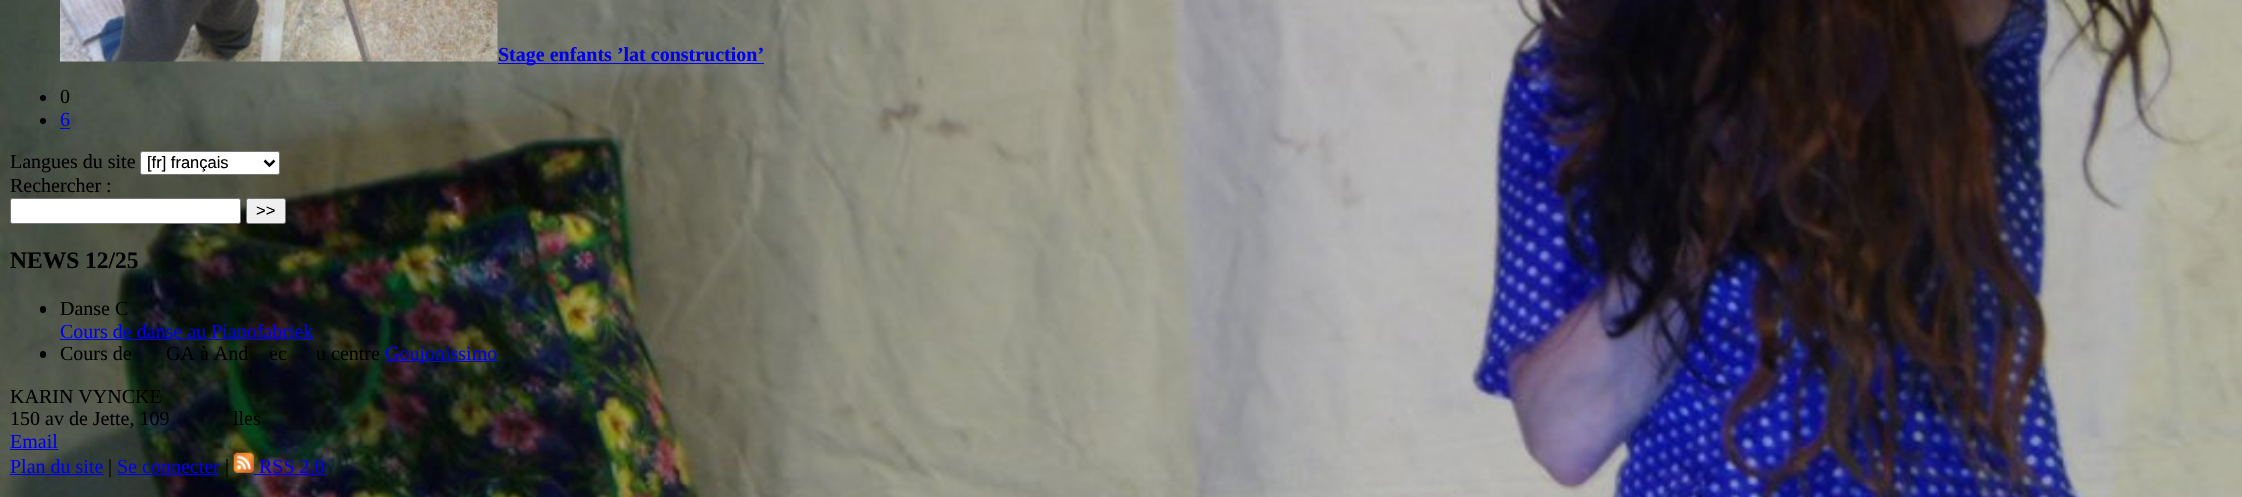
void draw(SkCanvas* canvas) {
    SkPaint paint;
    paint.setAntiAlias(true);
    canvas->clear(0xFFFFFFFF);
    canvas->drawImageRect(SkImages::DeferredFromEncodedData(SkData::MakeFromFileName("img1.png")), SkRect::MakeXYWH(0, 0, 2242, 497), SkSamplingOptions());
    canvas->drawImageRect(SkImages::DeferredFromEncodedData(SkData::MakeFromFileName("img2.png")), SkRect::MakeXYWH(60, 0, 438, 62), SkSamplingOptions());
    paint.setColor(0xFF0000EE);
    canvas->drawRect(SkRect::MakeXYWH(498, 63, 266, 1), paint);
    SkFont font1(fontMgr->matchFamilyStyle("Liberation Serif", SkFontStyle::Bold()), 20);
    font1.setSubpixel(true);
    canvas->drawString("Stage enfants ’lat construction’", 498, 61, font1, paint);
    paint.setColor(0xFF000000);
    canvas->drawCircle(43, 98, 3, paint);
    SkFont font2(fontMgr->matchFamilyStyle("Liberation Serif", SkFontStyle::Normal()), 20);
    font2.setSubpixel(true);
    canvas->drawString("0", 60, 103, font2, paint);
    canvas->drawCircle(43, 121, 3, paint);
    paint.setColor(0xFF0000EE);
    canvas->drawString("6", 60, 126, font2, paint);
    canvas->drawRect(SkRect::MakeXYWH(60, 128, 10, 1), paint);
    paint.setColor(0xFF000000);
    canvas->drawString("Langues du site", 10, 168, font2, paint);
    paint.setColor(0xFFFFFFFF);
    canvas->drawRoundRect(SkRect::MakeXYWH(140.5f, 151.5f, 139, 23), 2, 2, paint);
    paint.setStyle(SkPaint::kStroke_Style);
    paint.setStrokeWidth(1);
    paint.setColor(0xFF767676);
    canvas->drawRoundRect(SkRect::MakeXYWH(140.5f, 151.5f, 139, 23), 2, 2, paint);
    paint.setStrokeWidth(2.5f);
    paint.setColor(0xFF000000);
    canvas->drawPath(SkPathBuilder().moveTo(264.5f, 160.5f).lineTo(269.5f, 165.5f).lineTo(274.5f, 160.5f).detach(), paint);
    SkFont font3(fontMgr->matchFamilyStyle("Liberation Sans", SkFontStyle::Normal()), 16.5f);
    font3.setSubpixel(true);
    paint.setStyle(SkPaint::kFill_Style);
    canvas->drawString("[fr] français", 147, 168, font3, paint);
    canvas->drawString("Rechercher :", 10, 192, font2, paint);
    paint.setColor(0xFFFFFFFF);
    canvas->drawRoundRect(SkRect::MakeXYWH(10.5f, 198.5f, 230, 25), 2, 2, paint);
    paint.setStyle(SkPaint::kStroke_Style);
    paint.setStrokeWidth(1);
    paint.setColor(0xFF767676);
    canvas->drawRoundRect(SkRect::MakeXYWH(10.5f, 198.5f, 230, 25), 2, 2, paint);
    paint.setStyle(SkPaint::kFill_Style);
    paint.setColor(0xFFEFEFEF);
    canvas->drawRoundRect(SkRect::MakeXYWH(246.5f, 198.5f, 39, 25), 2, 2, paint);
    paint.setStyle(SkPaint::kStroke_Style);
    paint.setColor(0xFF767676);
    canvas->drawRoundRect(SkRect::MakeXYWH(246.5f, 198.5f, 39, 25), 2, 2, paint);
    paint.setStyle(SkPaint::kFill_Style);
    paint.setColor(0xFF000000);
    canvas->drawString(">>", 256, 216, font3, paint);
    SkFont font4(fontMgr->matchFamilyStyle("Liberation Serif", SkFontStyle::Bold()), 23.5f);
    font4.setSubpixel(true);
    canvas->drawString("NEWS 12/25", 10, 268, font4, paint);
    canvas->drawRoundRect(SkRect::MakeXYWH(40, 306, 6, 7), 3, 3, paint);
    canvas->drawString("Danse C", 60, 315, font2, paint);
    paint.setColor(0xFF0000EE);
    canvas->drawString("Cours de danse au Pianofabriek", 60, 338, font2, paint);
    canvas->drawRect(SkRect::MakeXYWH(60, 339, 254, 1), paint);
    paint.setColor(0xFF000000);
    canvas->drawRoundRect(SkRect::MakeXYWH(40, 351, 6, 7), 3, 3, paint);
    canvas->drawString("Cours de", 60, 360, font2, paint);
    canvas->drawString("GA à And", 166, 360, font2, paint);
    canvas->drawString("ec", 269, 360, font2, paint);
    canvas->drawString("u centre", 316, 360, font2, paint);
    paint.setColor(0xFF0000EE);
    canvas->drawRect(SkRect::MakeXYWH(385, 361, 113, 1), paint);
    canvas->drawString("Goujonissimo", 385, 360, font2, paint);
    paint.setColor(0xFF000000);
    canvas->drawString("KARIN VYNCKE", 10, 403, font2, paint);
    canvas->drawString("150 av de Jette, 109", 10, 425, font2, paint);
    canvas->drawString("lles", 233, 425, font2, paint);
    paint.setColor(0xFF0000EE);
    canvas->drawString("Email", 10, 448, font2, paint);
    canvas->drawRect(SkRect::MakeXYWH(10, 449, 48, 1), paint);
    canvas->drawString("Plan du site", 10, 473, font2, paint);
    canvas->drawRect(SkRect::MakeXYWH(10, 474, 94, 1), paint);
    paint.setColor(0xFF000000);
    canvas->drawString("|", 108, 473, font2, paint);
    paint.setColor(0xFF0000EE);
    canvas->drawString("Se connecter", 117, 473, font2, paint);
    canvas->drawRect(SkRect::MakeXYWH(118, 474, 102, 1), paint);
    paint.setColor(0xFF000000);
    canvas->drawString("|", 225, 473, font2, paint);
    canvas->drawImageRect(SkImages::DeferredFromEncodedData(SkData::MakeFromFileName("img3.png")), SkRect::MakeXYWH(233, 452, 21, 21), SkSamplingOptions());
    paint.setColor(0xFF0000EE);
    canvas->drawString("RSS 2.0", 259, 473, font2, paint);
    canvas->drawRect(SkRect::MakeXYWH(254, 474, 71, 1), paint);
}
